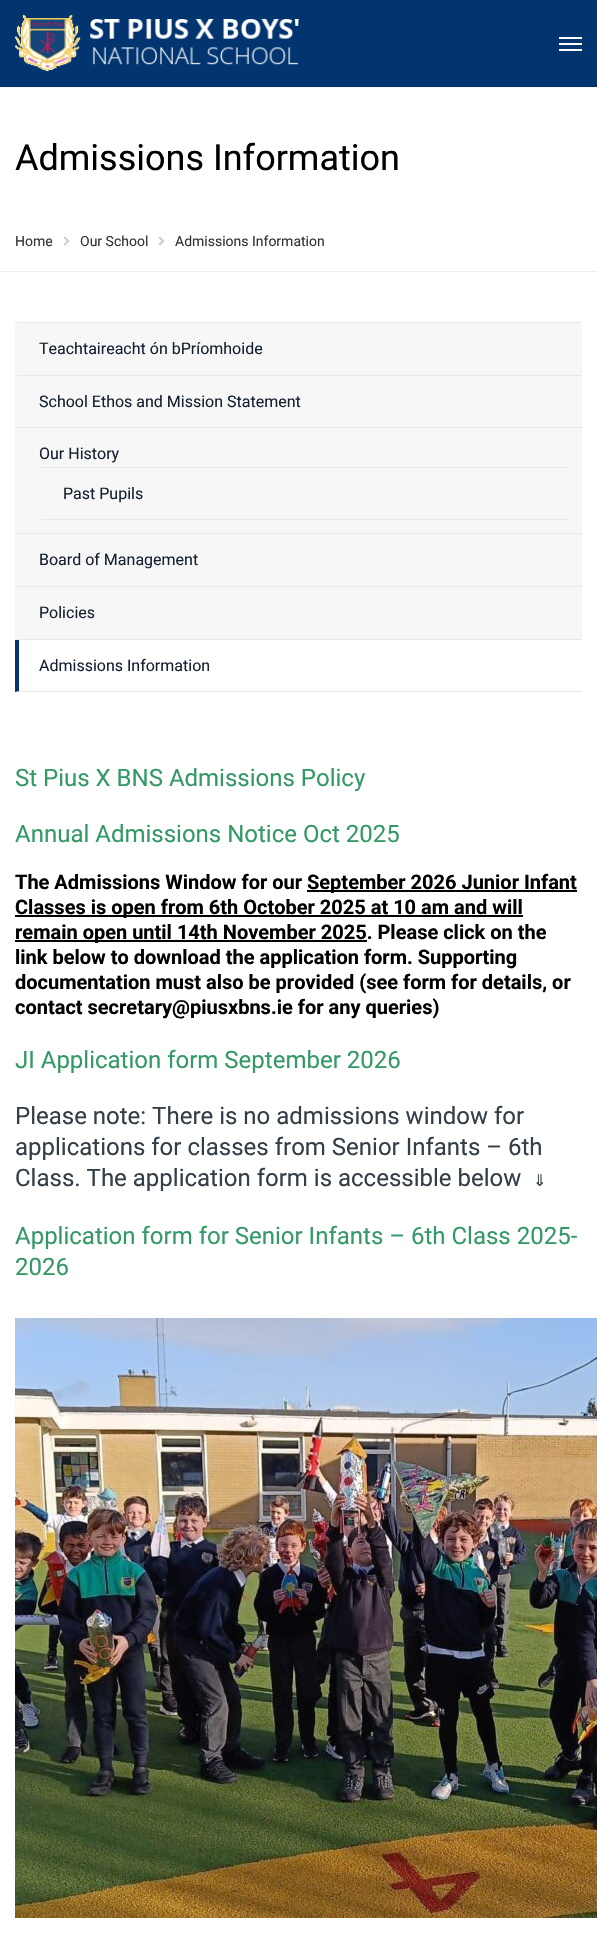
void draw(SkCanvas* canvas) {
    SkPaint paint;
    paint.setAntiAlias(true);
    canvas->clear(0xFFFFFFFF);
    paint.setColor(0xFFF5F5F5);
    canvas->drawRect(SkRect::MakeXYWH(0, 87, 597, 1), paint);
    paint.setColor(0xFF023570);
    canvas->drawRect(SkRect::MakeXYWH(0, 0, 597, 87), paint);
    canvas->drawImageRect(SkImages::DeferredFromEncodedData(SkData::MakeFromFileName("img1.png")), SkRect::MakeXYWH(15, 15, 284, 57), SkSamplingOptions());
    paint.setColor(0xFFFFFFFF);
    canvas->drawRect(SkRect::MakeXYWH(559, 37, 23, 2), paint);
    canvas->drawRect(SkRect::MakeXYWH(559, 43, 23, 2), paint);
    canvas->drawRect(SkRect::MakeXYWH(559, 49, 23, 2), paint);
    SkFont font1(fontMgr->matchFamilyStyle("Roboto", SkFontStyle::Normal()), 36);
    font1.setSubpixel(true);
    paint.setColor(0xFF000000);
    canvas->drawString("Admissions Information", 15, 170, font1, paint);
    paint.setColor(0xFFEEEEEE);
    canvas->drawRect(SkRect::MakeXYWH(0, 271, 597, 1), paint);
    SkFont font2(fontMgr->matchFamilyStyle("Roboto", SkFontStyle::Normal()), 14);
    font2.setSubpixel(true);
    paint.setColor(0xFF333333);
    canvas->drawString("Home", 15, 246, font2, paint);
    canvas->drawImageRect(SkImages::DeferredFromEncodedData(SkData::MakeFromFileName("img2.png")), SkRect::MakeXYWH(63, 236, 7, 10), SkSamplingOptions());
    canvas->drawString("Our School", 80, 246, font2, paint);
    canvas->drawImageRect(SkImages::DeferredFromEncodedData(SkData::MakeFromFileName("img2.png")), SkRect::MakeXYWH(158, 236, 7, 10), SkSamplingOptions());
    canvas->drawString("Admissions Information", 175, 246, font2, paint);
    paint.setColor(0xFFF7F7F7);
    canvas->drawRect(SkRect::MakeXYWH(15, 322, 567, 318), paint);
    paint.setColor(0xFFE6E7EB);
    canvas->drawPath(SkPathBuilder().moveTo(15, 322).lineTo(582, 322).lineTo(582, 323).lineTo(19, 323).close().detach(), paint);
    canvas->drawPath(SkPathBuilder().moveTo(582, 376).lineTo(15, 376).lineTo(19, 375).lineTo(582, 375).close().detach(), paint);
    SkFont font3(fontMgr->matchFamilyStyle("Roboto", SkFontStyle::Normal()), 16);
    font3.setSubpixel(true);
    paint.setColor(0xFF152130);
    canvas->drawString("Teachtaireacht ón bPríomhoide", 39, 354, font3, paint);
    paint.setColor(0xFFE6E7EB);
    canvas->drawPath(SkPathBuilder().moveTo(582, 428).lineTo(15, 428).lineTo(19, 427).lineTo(582, 427).close().detach(), paint);
    paint.setColor(0xFF152130);
    canvas->drawString("School Ethos and Mission Statement", 39, 407, font3, paint);
    paint.setColor(0xFFE6E7EB);
    canvas->drawPath(SkPathBuilder().moveTo(582, 534).lineTo(15, 534).lineTo(19, 533).lineTo(582, 533).close().detach(), paint);
    paint.setColor(0xFF152130);
    canvas->drawString("Our History", 39, 459, font3, paint);
    paint.setColor(0xFFE6E7EB);
    canvas->drawPath(SkPathBuilder().moveTo(39, 467).lineTo(569, 467).lineTo(569, 468).lineTo(43, 468).close().detach(), paint);
    canvas->drawPath(SkPathBuilder().moveTo(569, 520).lineTo(39, 520).lineTo(43, 519).lineTo(569, 519).close().detach(), paint);
    paint.setColor(0xFF152130);
    canvas->drawString("Past Pupils", 63, 499, font3, paint);
    paint.setColor(0xFFE6E7EB);
    canvas->drawPath(SkPathBuilder().moveTo(582, 587).lineTo(15, 587).lineTo(19, 586).lineTo(582, 586).close().detach(), paint);
    paint.setColor(0xFF152130);
    canvas->drawString("Board of Management", 39, 565, font3, paint);
    paint.setColor(0xFFE6E7EB);
    canvas->drawPath(SkPathBuilder().moveTo(582, 640).lineTo(15, 640).lineTo(19, 639).lineTo(582, 639).close().detach(), paint);
    paint.setColor(0xFF152130);
    canvas->drawString("Policies", 39, 618, font3, paint);
    paint.setColor(0xFFE6E7EB);
    canvas->drawPath(SkPathBuilder().moveTo(582, 692).lineTo(15, 692).lineTo(19, 691).lineTo(582, 691).close().detach(), paint);
    paint.setColor(0xFF023570);
    canvas->drawPath(SkPathBuilder().moveTo(15, 692).lineTo(15, 640).lineTo(19, 640).lineTo(19, 691).close().detach(), paint);
    paint.setColor(0xFF152130);
    canvas->drawString("Admissions Information", 39, 671, font3, paint);
    SkFont font4(fontMgr->matchFamilyStyle("Roboto", SkFontStyle::Normal()), 24);
    font4.setSubpixel(true);
    paint.setColor(0xFF339966);
    canvas->drawString("St Pius X BNS Admissions Policy", 15, 786, font4, paint);
    canvas->drawString("Annual Admissions Notice Oct 2025", 15, 842, font4, paint);
    SkFont font5(fontMgr->matchFamilyStyle("Roboto", SkFontStyle::Bold()), 20);
    font5.setSubpixel(true);
    paint.setColor(0xFF000000);
    canvas->drawString("The Admissions Window for our", 15, 889, font5, paint);
    canvas->drawRect(SkRect::MakeXYWH(307, 890, 270, 2), paint);
    canvas->drawString("September 2026 Junior Infant", 307, 889, font5, paint);
    canvas->drawRect(SkRect::MakeXYWH(15, 915, 508, 2), paint);
    canvas->drawString("Classes is open from 6th October 2025 at 10 am and will", 15, 914, font5, paint);
    canvas->drawRect(SkRect::MakeXYWH(15, 940, 352, 2), paint);
    canvas->drawString("remain open until 14th November 2025. Please click on the", 15, 939, font5, paint);
    canvas->drawString("link below to download the application form. Supporting", 15, 964, font5, paint);
    canvas->drawString("documentation must also be provided (see form for details, or", 15, 989, font5, paint);
    canvas->drawString("contact secretary@piusxbns.ie for any queries)", 15, 1014, font5, paint);
    paint.setColor(0xFF339966);
    canvas->drawString("JI Application form September 2026", 15, 1068, font4, paint);
    paint.setColor(0xFF343E47);
    canvas->drawString("Please note: There is no admissions window for", 15, 1124, font4, paint);
    canvas->drawString("applications for classes from Senior Infants – 6th", 15, 1155, font4, paint);
    canvas->drawString("Class. The application form is accessible below", 15, 1186, font4, paint);
    SkFont font6(fontMgr->matchFamilyStyle("DejaVu Sans", SkFontStyle::Normal()), 16);
    font6.setSubpixel(true);
    canvas->drawString("⇓", 533, 1186, font6, paint);
    paint.setColor(0xFF339966);
    canvas->drawString("Application form for Senior Infants – 6th Class 2025-", 15, 1244, font4, paint);
    canvas->drawString("2026", 15, 1275, font4, paint);
    canvas->drawImageRect(SkImages::DeferredFromEncodedData(SkData::MakeFromFileName("img3.png")), SkRect::MakeXYWH(15, 1318, 582, 600), SkSamplingOptions());
    SkFont font7(fontMgr->matchFamilyStyle("Liberation Serif", SkFontStyle::Normal()), 30);
    font7.setSubpixel(true);
    paint.setColor(0xFF4C505A);
    canvas->drawString("‹", 40, 1626, font7, paint);
}
